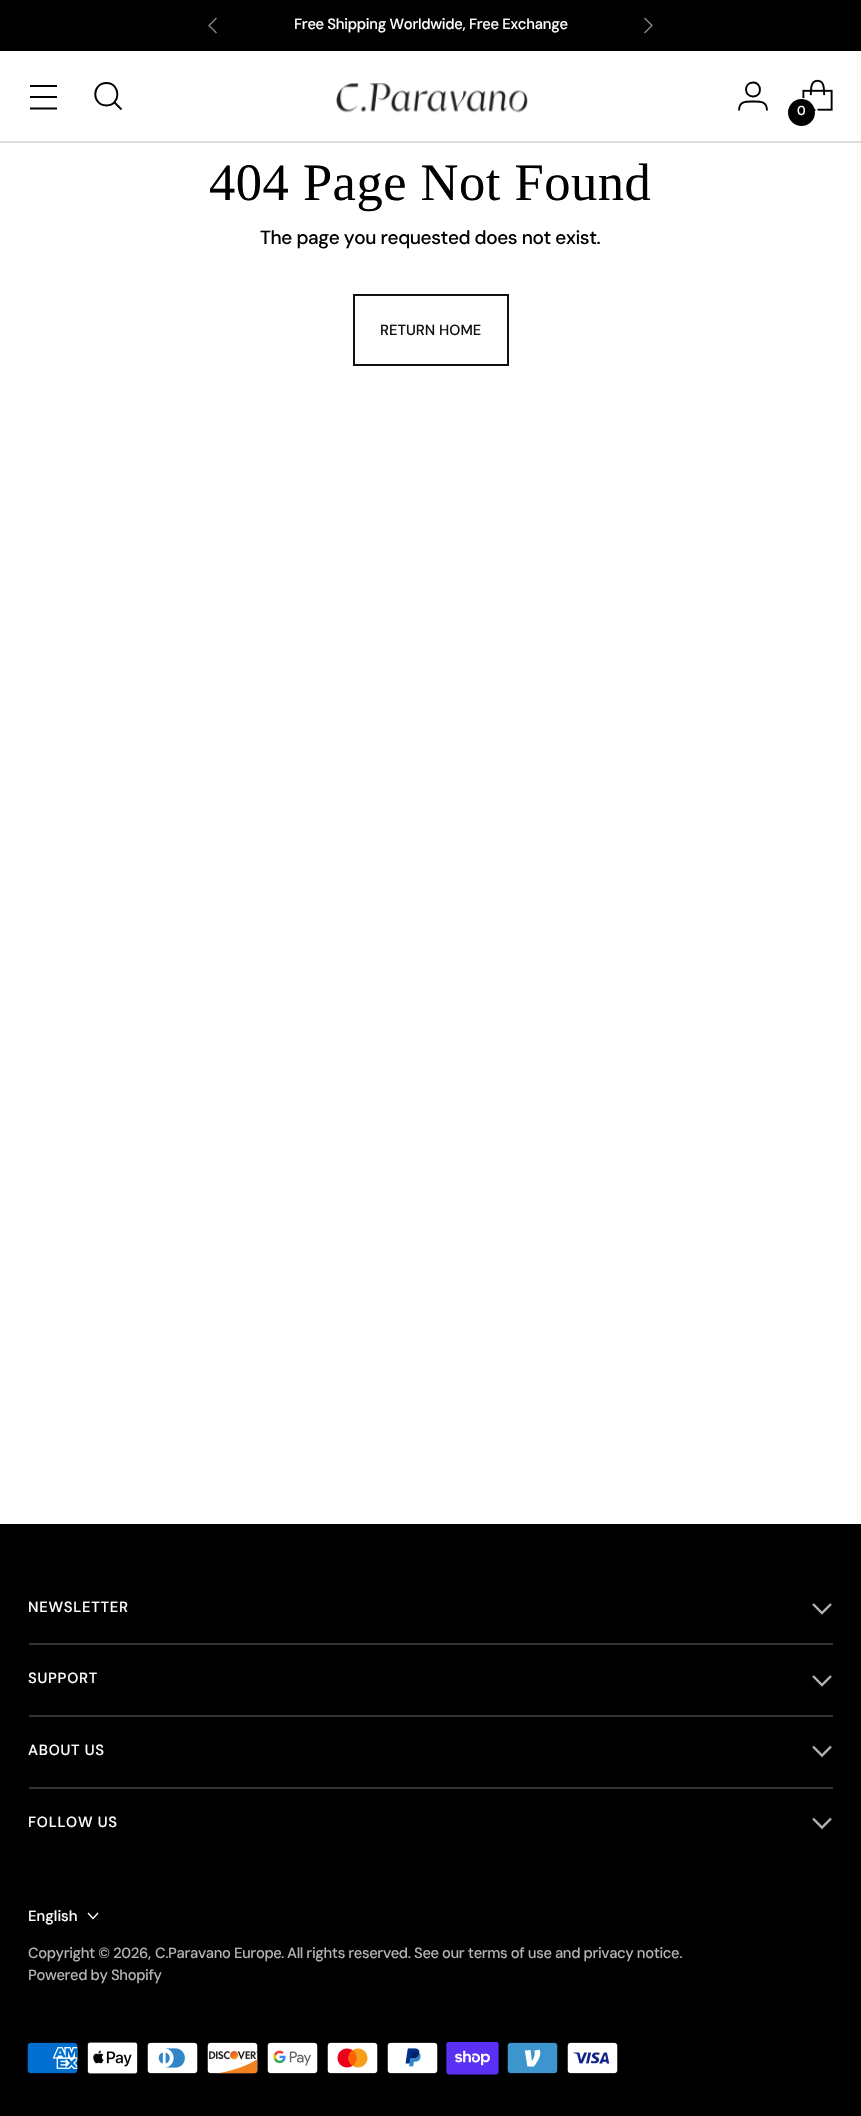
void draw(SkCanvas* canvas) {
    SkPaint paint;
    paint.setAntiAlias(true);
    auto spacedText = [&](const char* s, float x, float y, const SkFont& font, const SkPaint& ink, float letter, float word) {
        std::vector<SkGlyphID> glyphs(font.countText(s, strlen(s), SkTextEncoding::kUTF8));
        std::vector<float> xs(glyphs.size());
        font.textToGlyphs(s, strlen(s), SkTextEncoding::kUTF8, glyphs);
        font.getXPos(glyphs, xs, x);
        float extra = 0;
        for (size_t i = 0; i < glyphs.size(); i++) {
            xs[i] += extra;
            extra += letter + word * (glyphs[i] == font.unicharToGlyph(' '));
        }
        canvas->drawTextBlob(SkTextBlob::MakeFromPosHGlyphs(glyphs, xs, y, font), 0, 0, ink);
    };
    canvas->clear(0xFFFFFFFF);
    paint.setColor(0xFF000000);
    canvas->drawRect(SkRect::MakeXYWH(0, 0, 861, 51), paint);
    paint.setStyle(SkPaint::kStroke_Style);
    paint.setStrokeWidth(1.5f);
    paint.setColor(0xFF808080);
    canvas->drawPath(SkPathBuilder().moveTo(216.5f, 18).lineTo(209, 25.5f).lineTo(216.5f, 33).detach(), paint);
    canvas->drawPath(SkPathBuilder().moveTo(644.5f, 33).lineTo(652, 25.5f).lineTo(644.5f, 18).detach(), paint);
    SkFont font1(fontMgr->matchFamilyStyle("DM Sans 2", SkFontStyle(500, SkFontStyle::kNormal_Width, SkFontStyle::kUpright_Slant)), 14.75f);
    font1.setSubpixel(true);
    paint.setStyle(SkPaint::kFill_Style);
    paint.setColor(0xFFFFFFFF);
    spacedText("Free Shipping Worldwide, Free Exchange", 294, 29, font1, paint, -0.3f, 0);
    paint.setColor(0xFFDDDDDD);
    canvas->drawRect(SkRect::MakeXYWH(0, 141, 861, 2), paint);
    paint.setStyle(SkPaint::kStroke_Style);
    paint.setStrokeWidth(1.9f);
    paint.setColor(0xFF000000);
    canvas->drawPath(SkPathBuilder().moveTo(30, 97).lineTo(57, 97).moveTo(30, 86).lineTo(57, 86).moveTo(30, 108.5f).lineTo(57, 108.5f).detach(), paint);
    paint.setStrokeCap(SkPaint::kRound_Cap);
    canvas->drawPath(SkPathBuilder().moveTo(106.5f, 105.5f).cubicTo(121, 105.5f, 121, 83, 106.5f, 83).cubicTo(91.5f, 83, 91.5f, 105.5f, 106.5f, 105.5f).close().detach(), paint);
    paint.setStrokeCap(SkPaint::kButt_Cap);
    canvas->drawPath(SkPathBuilder().moveTo(114.5f, 102.5f).lineTo(121.5f, 109.5f).detach(), paint);
    canvas->drawImageRect(SkImages::DeferredFromEncodedData(SkData::MakeFromFileName("img1.png")), SkRect::MakeXYWH(336, 83, 192, 30), SkSamplingOptions());
    canvas->drawPath(SkPathBuilder().moveTo(753, 96.5f).cubicTo(762.5f, 97, 762, 82, 753, 82.5f).cubicTo(743.5f, 83, 744, 96.5f, 753, 96.5f).close().moveTo(739, 110.5f).cubicTo(739, 101, 746, 101.5f, 753, 101.5f).cubicTo(760, 101.5f, 767, 101, 767, 110.5f).detach(), paint);
    canvas->drawImageRect(SkImages::DeferredFromEncodedData(SkData::MakeFromFileName("img2.png")), SkRect::MakeXYWH(802, 79, 31, 32), SkSamplingOptions());
    paint.setStrokeWidth(2);
    paint.setColor(0xFFFFFFFF);
    canvas->drawRoundRect(SkRect::MakeXYWH(787, 99, 30, 29), 14.5f, 14.5f, paint);
    paint.setStyle(SkPaint::kFill_Style);
    paint.setColor(0xFF000000);
    canvas->drawCircle(801.5f, 112.5f, 13.5f, paint);
    SkFont font2(fontMgr->matchFamilyStyle("DM Sans 2", SkFontStyle(500, SkFontStyle::kNormal_Width, SkFontStyle::kUpright_Slant)), 13);
    font2.setSubpixel(true);
    paint.setColor(0xFFFFFFFF);
    spacedText("0", 797, 115, font2, paint, -0.4f, 0);
    SkFont font3(fontMgr->matchFamilyStyle("Liberation Serif", SkFontStyle::Normal()), 52.5f);
    font3.setSubpixel(true);
    paint.setColor(0xFF000000);
    spacedText("404 Page Not Found", 209, 200, font3, paint, 0.5f, 0);
    SkFont font4(fontMgr->matchFamilyStyle("DM Sans", SkFontStyle(500, SkFontStyle::kNormal_Width, SkFontStyle::kUpright_Slant)), 19);
    font4.setSubpixel(true);
    spacedText("The page you requested does not exist.", 260, 244, font4, paint, -0.4f, 0);
    paint.setStyle(SkPaint::kStroke_Style);
    paint.setColor(0xFF111111);
    canvas->drawRect(SkRect::MakeXYWH(354, 295, 154, 70), paint);
    paint.setStyle(SkPaint::kFill_Style);
    canvas->drawString("RETURN HOME", 380, 335, font1, paint);
    paint.setColor(0xFF000000);
    canvas->drawRect(SkRect::MakeXYWH(0, 1524, 861, 592), paint);
    paint.setColor(0xFF333333);
    canvas->drawRect(SkRect::MakeXYWH(29, 1643, 804, 2), paint);
    paint.setColor(0xFFFFFFFF);
    spacedText("NEWSLETTER", 28, 1612, font1, paint, 0.75f, 0);
    paint.setStyle(SkPaint::kStroke_Style);
    paint.setStrokeWidth(2.4f);
    paint.setColor(0xFFB3B3B3);
    canvas->drawPath(SkPathBuilder().moveTo(813, 1604).lineTo(822, 1613).lineTo(831, 1604).detach(), paint);
    paint.setStyle(SkPaint::kFill_Style);
    paint.setColor(0xFF333333);
    canvas->drawRect(SkRect::MakeXYWH(29, 1715, 804, 2), paint);
    paint.setColor(0xFFFFFFFF);
    spacedText("SUPPORT", 28, 1683, font1, paint, 0.75f, 0);
    paint.setStyle(SkPaint::kStroke_Style);
    paint.setColor(0xFFB3B3B3);
    canvas->drawPath(SkPathBuilder().moveTo(813, 1676).lineTo(822, 1685).lineTo(831, 1676).detach(), paint);
    paint.setStyle(SkPaint::kFill_Style);
    paint.setColor(0xFF333333);
    canvas->drawRect(SkRect::MakeXYWH(29, 1787, 804, 2), paint);
    paint.setColor(0xFFFFFFFF);
    spacedText("ABOUT US", 28, 1755, font1, paint, 0.75f, 0);
    paint.setStyle(SkPaint::kStroke_Style);
    paint.setColor(0xFFB3B3B3);
    canvas->drawPath(SkPathBuilder().moveTo(813, 1746.5f).lineTo(822, 1755.5f).lineTo(831, 1746.5f).detach(), paint);
    paint.setStyle(SkPaint::kFill_Style);
    paint.setColor(0xFFFFFFFF);
    spacedText("FOLLOW US", 28, 1827, font1, paint, 0.75f, 0);
    paint.setStyle(SkPaint::kStroke_Style);
    paint.setColor(0xFFB3B3B3);
    canvas->drawPath(SkPathBuilder().moveTo(813, 1818.5f).lineTo(822, 1827.5f).lineTo(831, 1818.5f).detach(), paint);
    paint.setStyle(SkPaint::kFill_Style);
    paint.setColor(0xFFFFFFFF);
    canvas->drawString("English", 28, 1921, font1, paint);
    paint.setStyle(SkPaint::kStroke_Style);
    paint.setStrokeWidth(1.4f);
    canvas->drawPath(SkPathBuilder().moveTo(88, 1913).lineTo(93, 1918.5f).lineTo(98, 1913).detach(), paint);
    paint.setStyle(SkPaint::kFill_Style);
    paint.setColor(0xFFB3B3B3);
    spacedText("Copyright © 2026,", 28, 1958, font1, paint, -0.4f, 0);
    spacedText("C.Paravano Europe", 155, 1958, font1, paint, -0.4f, 0);
    spacedText(".", 281, 1958, font1, paint, -0.4f, 0);
    spacedText("All rights reserved.", 287, 1958, font1, paint, -0.4f, 0);
    spacedText("See our terms of use and privacy notice.", 414, 1958, font1, paint, -0.4f, 0);
    spacedText("Powered by Shopify", 28, 1980, font1, paint, -0.4f, 0);
    canvas->drawImageRect(SkImages::DeferredFromEncodedData(SkData::MakeFromFileName("img3.png")), SkRect::MakeXYWH(27, 2042, 51, 32), SkSamplingOptions());
    canvas->drawImageRect(SkImages::DeferredFromEncodedData(SkData::MakeFromFileName("img4.png")), SkRect::MakeXYWH(87, 2042, 51, 32), SkSamplingOptions());
    canvas->drawImageRect(SkImages::DeferredFromEncodedData(SkData::MakeFromFileName("img5.png")), SkRect::MakeXYWH(147, 2042, 51, 32), SkSamplingOptions());
    canvas->drawImageRect(SkImages::DeferredFromEncodedData(SkData::MakeFromFileName("img6.png")), SkRect::MakeXYWH(207, 2042, 51, 32), SkSamplingOptions());
    canvas->drawImageRect(SkImages::DeferredFromEncodedData(SkData::MakeFromFileName("img7.png")), SkRect::MakeXYWH(267, 2042, 51, 32), SkSamplingOptions());
    canvas->drawImageRect(SkImages::DeferredFromEncodedData(SkData::MakeFromFileName("img8.png")), SkRect::MakeXYWH(327, 2042, 51, 32), SkSamplingOptions());
    canvas->drawImageRect(SkImages::DeferredFromEncodedData(SkData::MakeFromFileName("img9.png")), SkRect::MakeXYWH(387, 2042, 51, 32), SkSamplingOptions());
    canvas->drawImageRect(SkImages::DeferredFromEncodedData(SkData::MakeFromFileName("img10.png")), SkRect::MakeXYWH(446, 2042, 53, 33), SkSamplingOptions());
    canvas->drawImageRect(SkImages::DeferredFromEncodedData(SkData::MakeFromFileName("img11.png")), SkRect::MakeXYWH(507, 2042, 51, 32), SkSamplingOptions());
    canvas->drawImageRect(SkImages::DeferredFromEncodedData(SkData::MakeFromFileName("img12.png")), SkRect::MakeXYWH(567, 2042, 51, 32), SkSamplingOptions());
}
